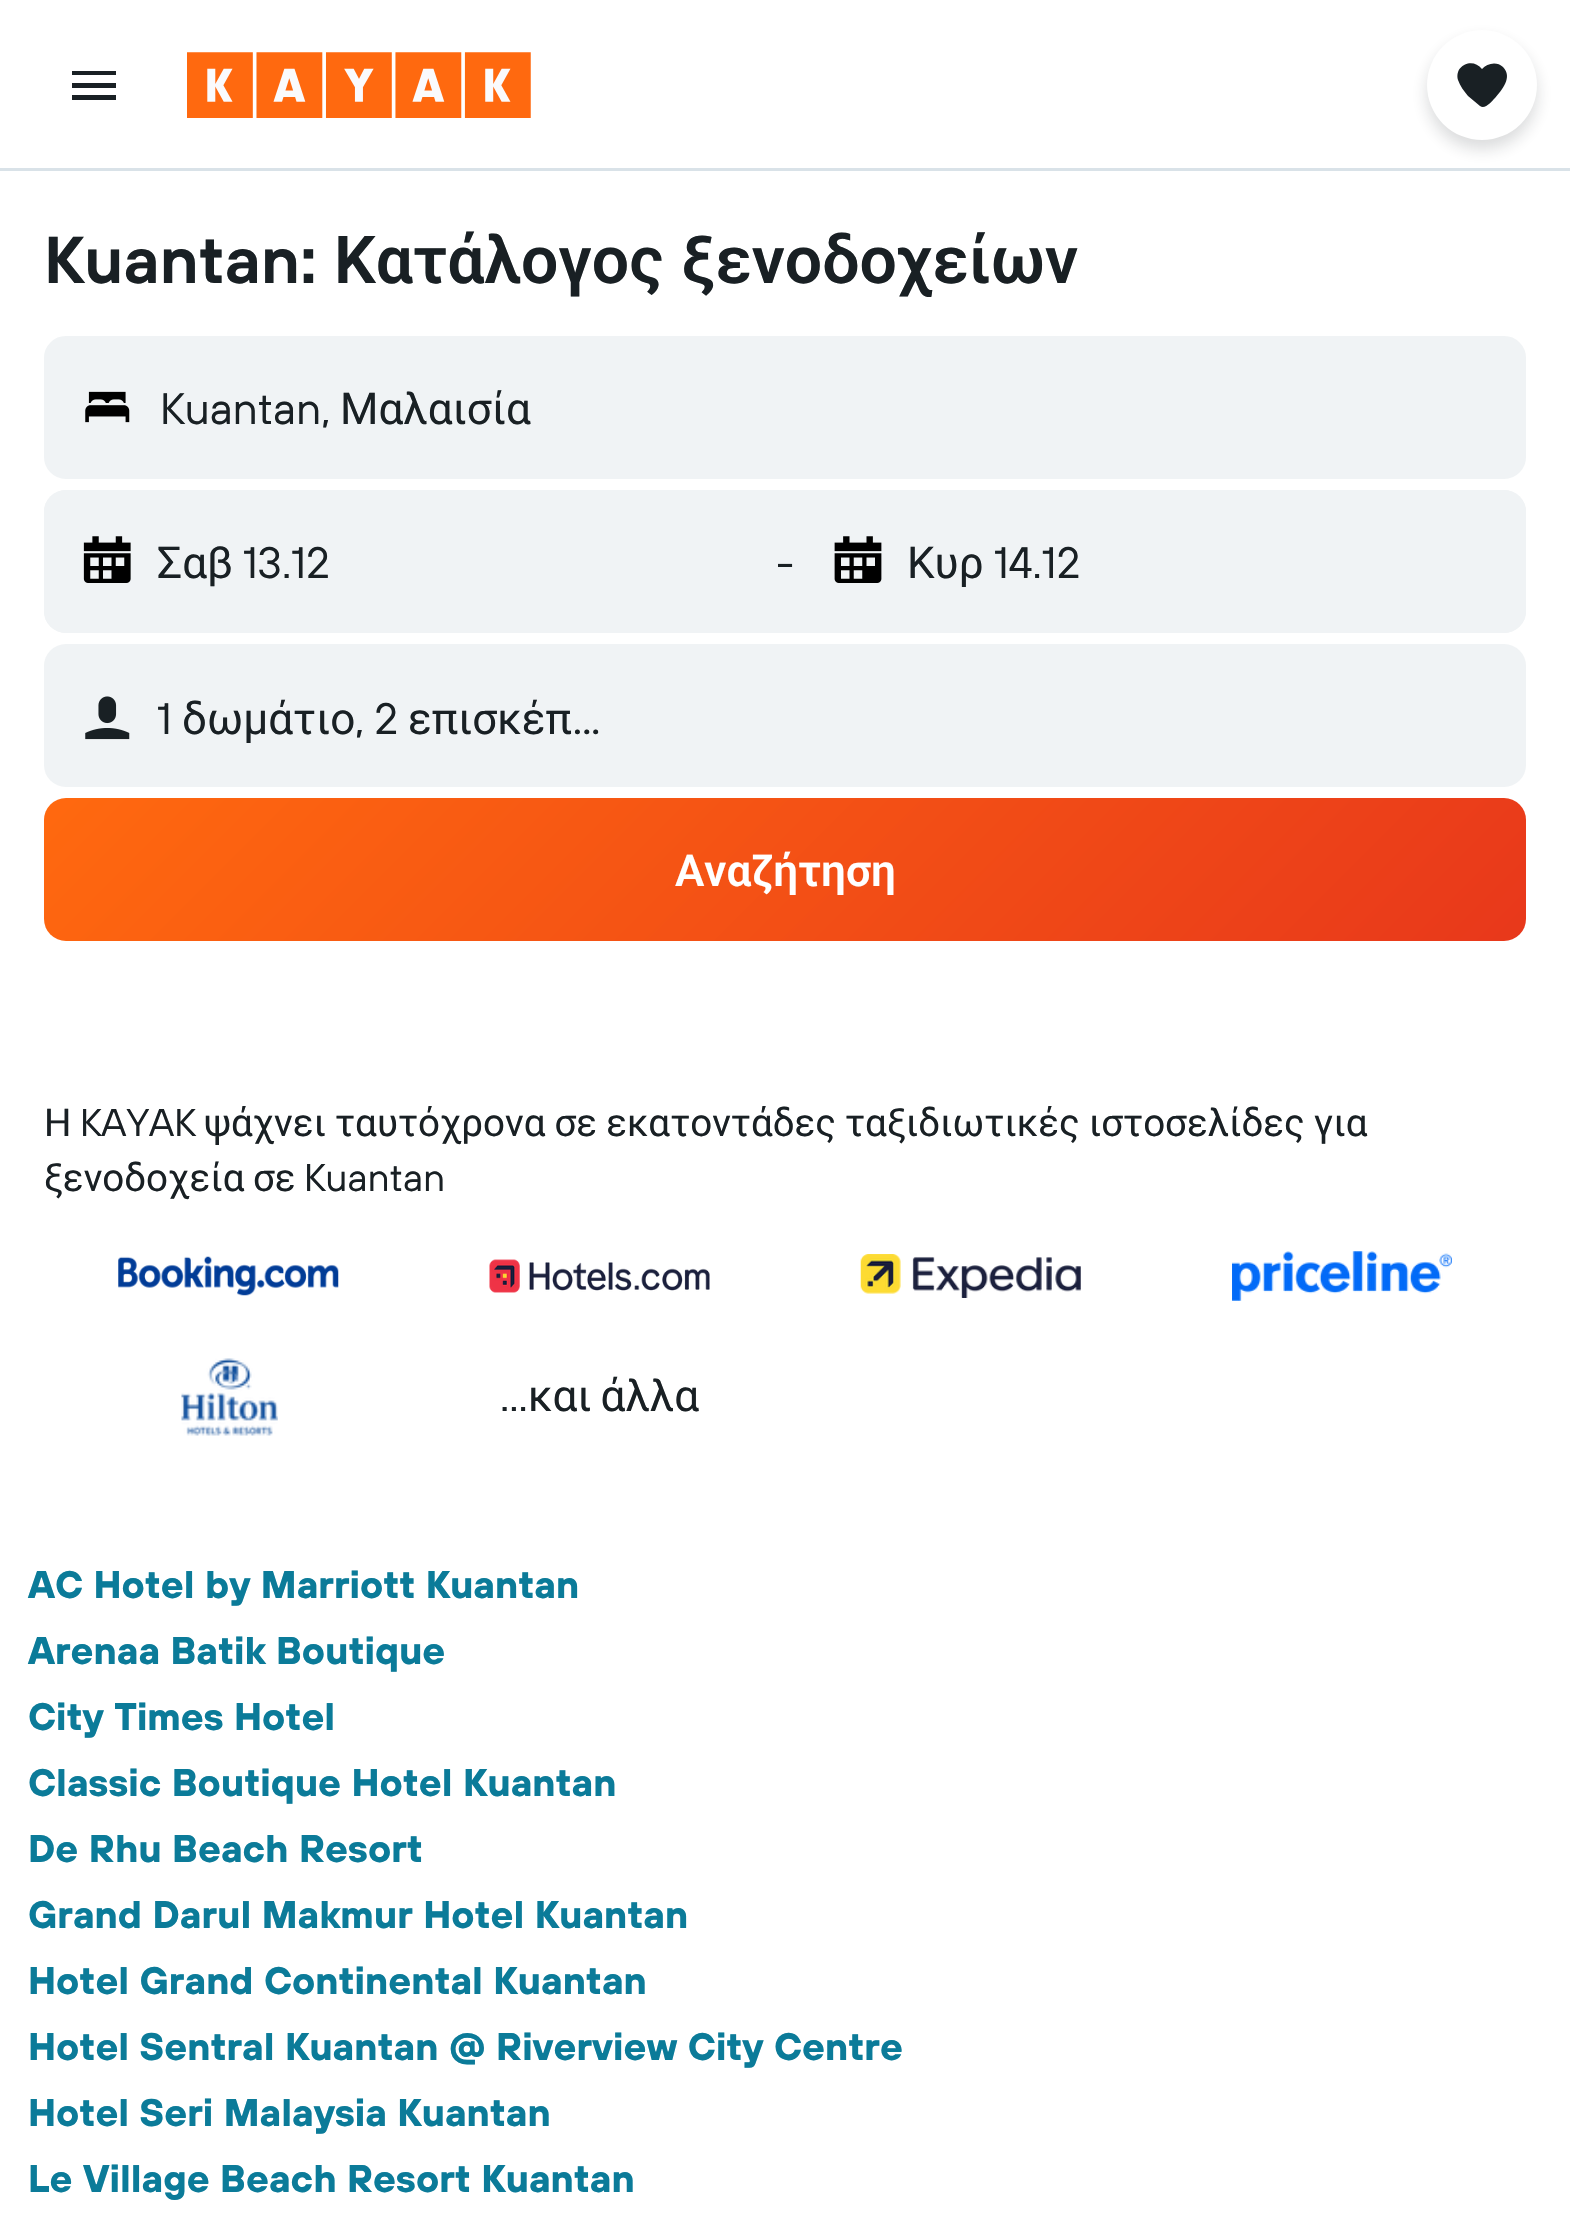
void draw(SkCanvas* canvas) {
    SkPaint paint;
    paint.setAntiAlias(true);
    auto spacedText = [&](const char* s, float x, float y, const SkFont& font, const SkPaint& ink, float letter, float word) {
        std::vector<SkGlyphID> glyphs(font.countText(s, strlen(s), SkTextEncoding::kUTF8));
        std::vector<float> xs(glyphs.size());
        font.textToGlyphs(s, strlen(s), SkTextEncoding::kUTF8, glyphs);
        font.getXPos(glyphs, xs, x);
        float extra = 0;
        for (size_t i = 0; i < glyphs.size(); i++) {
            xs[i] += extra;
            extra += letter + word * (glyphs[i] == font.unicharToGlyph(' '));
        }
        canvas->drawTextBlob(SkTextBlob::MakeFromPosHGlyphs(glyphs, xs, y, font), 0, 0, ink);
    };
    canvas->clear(0xFFFFFFFF);
    paint.setColor(0xFFD9E2E8);
    canvas->drawRect(SkRect::MakeXYWH(0, 168, 1570, 3), paint);
    paint.setColor(0xFF192024);
    canvas->drawPath(SkPathBuilder().moveTo(72, 100).lineTo(116, 100).lineTo(116, 95).lineTo(72, 95).close().moveTo(72, 88).lineTo(116, 88).lineTo(116, 83).lineTo(72, 83).close().moveTo(72, 71).lineTo(72, 75).lineTo(116, 75).lineTo(116, 71).close().detach(), paint);
    canvas->drawImageRect(SkImages::DeferredFromEncodedData(SkData::MakeFromFileName("img1.png")), SkRect::MakeXYWH(187, 52, 344, 66), SkSamplingOptions());
    paint.setColor(0x29192024);
    paint.setMaskFilter(SkMaskFilter::MakeBlur(kNormal_SkBlurStyle, 8));
    canvas->drawRoundRect(SkRect::MakeXYWH(1427, 39, 110, 110), 55, 55, paint);
    paint.setMaskFilter(nullptr);
    paint.setColor(0xFFFFFFFF);
    canvas->drawCircle(1482, 85, 55, paint);
    paint.setColor(0xFF192024);
    canvas->drawPath(SkPathBuilder().moveTo(1503, 67).cubicTo(1497, 61, 1487, 63, 1482, 69).cubicTo(1473, 57, 1454, 65, 1458, 80).cubicTo(1460, 86, 1464, 91, 1468, 96).lineTo(1480, 106).cubicTo(1485, 110, 1492, 101, 1495, 98).cubicTo(1502, 90, 1513, 77, 1503, 67).close().detach(), paint);
    SkFont font1(fontMgr->matchFamilyStyle("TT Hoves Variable", SkFontStyle(600, SkFontStyle::kNormal_Width, SkFontStyle::kUpright_Slant)), 66);
    font1.setSubpixel(true);
    canvas->drawString("Kuantan:", 44, 283, font1, paint);
    SkFont font2(fontMgr->matchFamilyStyle("Roboto", SkFontStyle(600, SkFontStyle::kNormal_Width, SkFontStyle::kUpright_Slant)), 66);
    font2.setSubpixel(true);
    spacedText("Κατάλογος ξενοδοχείων", 334, 283, font2, paint, 0, 1);
    paint.setColor(0xFFF0F3F5);
    canvas->drawRoundRect(SkRect::MakeXYWH(45.5f, 337.5f, 1479, 140), 20.5f, 20.5f, paint);
    paint.setStyle(SkPaint::kStroke_Style);
    paint.setStrokeWidth(3);
    canvas->drawRoundRect(SkRect::MakeXYWH(45.5f, 337.5f, 1479, 140), 20.5f, 20.5f, paint);
    canvas->drawImageRect(SkImages::DeferredFromEncodedData(SkData::MakeFromFileName("img2.png")), SkRect::MakeXYWH(85, 391, 45, 32), SkSamplingOptions());
    SkFont font3(fontMgr->matchFamilyStyle("TT Hoves Variable", SkFontStyle::Normal()), 44);
    font3.setSubpixel(true);
    paint.setStyle(SkPaint::kFill_Style);
    paint.setColor(0xFF192024);
    canvas->drawString("Kuantan,", 160, 424, font3, paint);
    SkFont font4(fontMgr->matchFamilyStyle("Roboto", SkFontStyle::Normal()), 44);
    font4.setSubpixel(true);
    canvas->drawString("Μαλαισία", 340, 424, font4, paint);
    paint.setColor(0xFFF0F3F5);
    canvas->drawRoundRect(SkRect::MakeXYWH(44, 490, 1482, 143), 22, 22, paint);
    canvas->drawRoundRect(SkRect::MakeXYWH(44, 490, 732, 143), 22, 22, paint);
    canvas->drawImageRect(SkImages::DeferredFromEncodedData(SkData::MakeFromFileName("img3.png")), SkRect::MakeXYWH(83, 536, 48, 47), SkSamplingOptions());
    paint.setColor(0xFF192024);
    canvas->drawString("Σαβ", 157, 578, font4, paint);
    canvas->drawString("13.12", 243, 578, font3, paint);
    canvas->drawString("-", 776, 578, font3, paint);
    paint.setColor(0xFFF0F3F5);
    canvas->drawRoundRect(SkRect::MakeXYWH(795, 490, 731, 143), 22, 22, paint);
    canvas->drawImageRect(SkImages::DeferredFromEncodedData(SkData::MakeFromFileName("img4.png")), SkRect::MakeXYWH(834, 536, 48, 47), SkSamplingOptions());
    paint.setColor(0xFF192024);
    canvas->drawString("Κυρ", 907, 578, font4, paint);
    canvas->drawString("14.12", 994, 578, font3, paint);
    paint.setColor(0xFFF0F3F5);
    canvas->drawRoundRect(SkRect::MakeXYWH(44, 644, 1482, 143), 22, 22, paint);
    canvas->drawImageRect(SkImages::DeferredFromEncodedData(SkData::MakeFromFileName("img5.png")), SkRect::MakeXYWH(85, 696, 45, 44), SkSamplingOptions());
    paint.setColor(0xFF192024);
    canvas->drawString("1", 157, 734, font3, paint);
    canvas->drawString("δωμάτιο", 182, 734, font4, paint);
    canvas->drawString(", 2", 355, 734, font3, paint);
    canvas->drawString("επισκέπ…", 408, 734, font4, paint);
    {
        const SkColor colors[] = {0xFFFF690F, 0xFFE8381B};
        const float stops[] = {0, 1};
        const SkPoint ends[] = {{379, 463}, {1191, 1275}};
        paint.setShader(SkGradientShader::MakeLinear(ends, colors, stops, 2, SkTileMode::kClamp));
        paint.setAlpha(255);
    }
    canvas->drawRoundRect(SkRect::MakeXYWH(44, 798, 1482, 143), 22, 22, paint);
    SkFont font5(fontMgr->matchFamilyStyle("Roboto", SkFontStyle(600, SkFontStyle::kNormal_Width, SkFontStyle::kUpright_Slant)), 44);
    font5.setSubpixel(true);
    paint.setShader(nullptr);
    paint.setColor(0xFFFFFFFF);
    canvas->drawString("Αναζήτηση", 675, 886, font5, paint);
    SkFont font6(fontMgr->matchFamilyStyle("Roboto", SkFontStyle::Normal()), 38.5f);
    font6.setSubpixel(true);
    paint.setColor(0xFF192024);
    canvas->drawString("Η", 44, 1136, font6, paint);
    SkFont font7(fontMgr->matchFamilyStyle("TT Hoves Variable", SkFontStyle::Normal()), 38.5f);
    font7.setSubpixel(true);
    canvas->drawString("KAYAK", 80, 1136, font7, paint);
    spacedText("ψάχνει ταυτόχρονα σε εκατοντάδες ταξιδιωτικές ιστοσελίδες για", 204, 1136, font6, paint, 0, -0.5f);
    spacedText("ξενοδοχεία σε", 44, 1191, font6, paint, 0, -1);
    canvas->drawString("Kuantan", 304, 1191, font7, paint);
    canvas->drawImageRect(SkImages::DeferredFromEncodedData(SkData::MakeFromFileName("img6.png")), SkRect::MakeXYWH(118, 1256, 221, 40), SkSamplingOptions());
    canvas->drawImageRect(SkImages::DeferredFromEncodedData(SkData::MakeFromFileName("img7.png")), SkRect::MakeXYWH(489, 1259, 221, 34), SkSamplingOptions());
    canvas->drawImageRect(SkImages::DeferredFromEncodedData(SkData::MakeFromFileName("img8.png")), SkRect::MakeXYWH(860, 1254, 221, 44), SkSamplingOptions());
    canvas->drawImageRect(SkImages::DeferredFromEncodedData(SkData::MakeFromFileName("img9.png")), SkRect::MakeXYWH(1232, 1251, 220, 50), SkSamplingOptions());
    canvas->drawImageRect(SkImages::DeferredFromEncodedData(SkData::MakeFromFileName("img10.png")), SkRect::MakeXYWH(181, 1358, 97, 78), SkSamplingOptions());
    canvas->drawString("...", 500, 1411, font3, paint);
    spacedText("και άλλα", 528, 1411, font4, paint, 0, -2);
    SkFont font8(fontMgr->matchFamilyStyle("TT Hoves Variable", SkFontStyle::Bold()), 38.5f);
    font8.setSubpixel(true);
    paint.setColor(0xFF0B7B99);
    canvas->drawString("AC Hotel by Marriott Kuantan", 28, 1598, font8, paint);
    canvas->drawString("Arenaa Batik Boutique", 28, 1664, font8, paint);
    canvas->drawString("City Times Hotel", 28, 1730, font8, paint);
    canvas->drawString("Classic Boutique Hotel Kuantan", 28, 1796, font8, paint);
    canvas->drawString("De Rhu Beach Resort", 28, 1862, font8, paint);
    canvas->drawString("Grand Darul Makmur Hotel Kuantan", 28, 1928, font8, paint);
    canvas->drawString("Hotel Grand Continental Kuantan", 28, 1994, font8, paint);
    canvas->drawString("Hotel Sentral Kuantan @ Riverview City Centre", 28, 2060, font8, paint);
    canvas->drawString("Hotel Seri Malaysia Kuantan", 28, 2126, font8, paint);
    canvas->drawString("Le Village Beach Resort Kuantan", 28, 2192, font8, paint);
}
